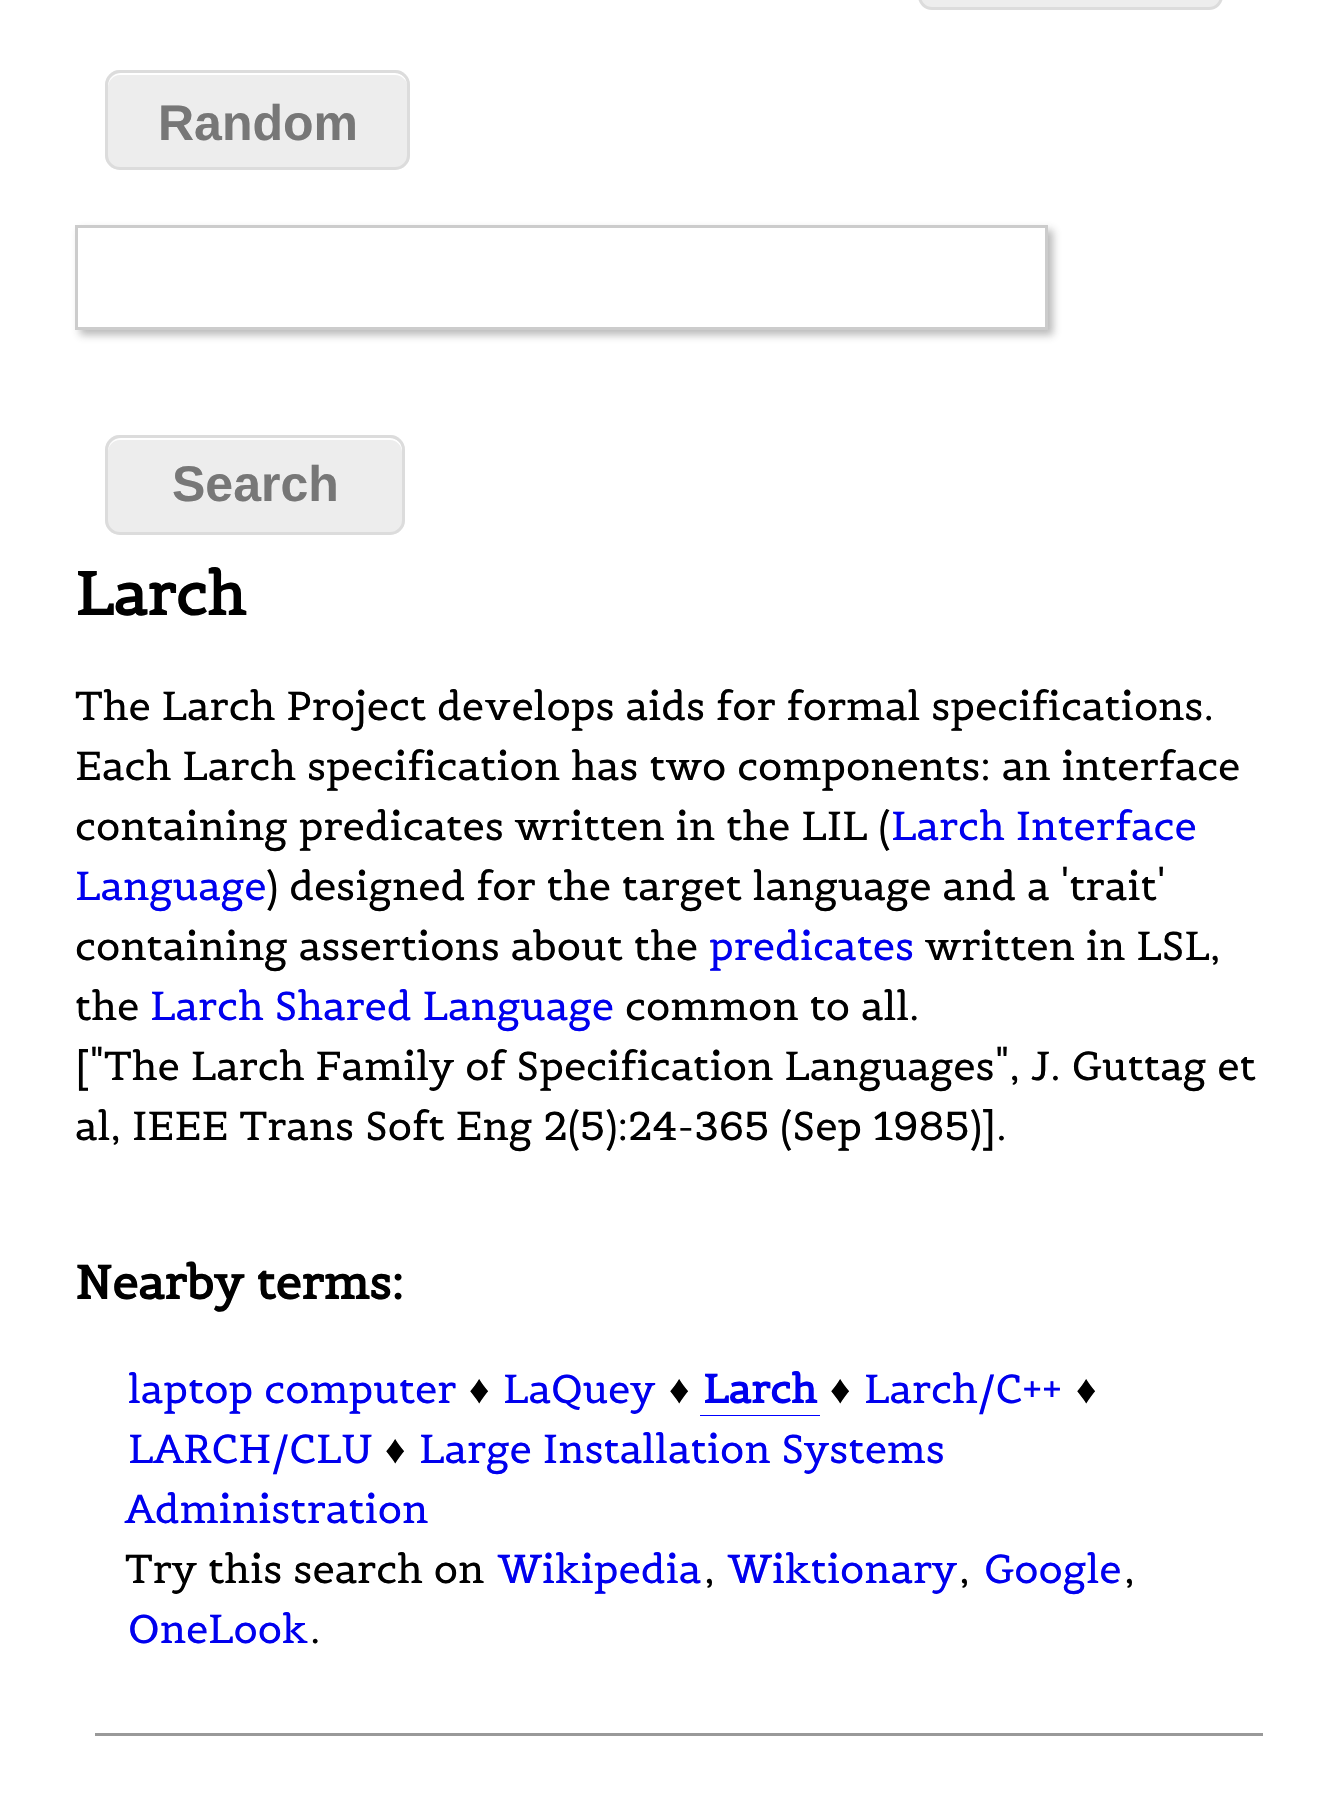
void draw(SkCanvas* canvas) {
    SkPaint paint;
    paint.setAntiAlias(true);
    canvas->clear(0xFFFFFFFF);
    paint.setColor(0xFFEDEDED);
    canvas->drawRoundRect(SkRect::MakeXYWH(919.5f, -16.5f, 302, 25), 13.5f, 13.5f, paint);
    paint.setStyle(SkPaint::kStroke_Style);
    paint.setStrokeWidth(3);
    paint.setColor(0xFFDCDCDC);
    canvas->drawRoundRect(SkRect::MakeXYWH(919.5f, -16.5f, 302, 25), 13.5f, 13.5f, paint);
    paint.setStyle(SkPaint::kFill_Style);
    paint.setColor(0xFFEDEDED);
    canvas->drawRoundRect(SkRect::MakeXYWH(105, 70, 305, 100), 15, 15, paint);
    paint.setColor(0xFFFFFFFF);
    canvas->drawPath(SkPathBuilder().moveTo(120, 75).lineTo(395, 75).cubicTo(402, 75, 408, 81, 408, 88).lineTo(408, 86).cubicTo(408, 79, 402, 73, 395, 73).lineTo(121, 73).cubicTo(114, 73, 108, 79, 108, 86).lineTo(108, 88).cubicTo(108, 81, 113, 75, 120, 75).close().detach(), paint);
    paint.setStyle(SkPaint::kStroke_Style);
    paint.setColor(0xFFDCDCDC);
    canvas->drawRoundRect(SkRect::MakeXYWH(106.5f, 71.5f, 302, 97), 13.5f, 13.5f, paint);
    SkFont font1(fontMgr->matchFamilyStyle("Liberation Sans", SkFontStyle::Bold()), 50);
    font1.setSubpixel(true);
    paint.setStyle(SkPaint::kFill_Style);
    paint.setColor(0xFF777777);
    canvas->drawString("Random", 158, 140, font1, paint);
    paint.setColor(0x57323232);
    paint.setMaskFilter(SkMaskFilter::MakeBlur(kNormal_SkBlurStyle, 4));
    canvas->drawRect(SkRect::MakeXYWH(80, 230, 973, 105), paint);
    paint.setMaskFilter(nullptr);
    paint.setColor(0xFFFFFFFF);
    canvas->drawRect(SkRect::MakeXYWH(76.5f, 226.5f, 970, 102), paint);
    paint.setStyle(SkPaint::kStroke_Style);
    paint.setColor(0xFFCCCCCC);
    canvas->drawRect(SkRect::MakeXYWH(76.5f, 226.5f, 970, 102), paint);
    paint.setStyle(SkPaint::kFill_Style);
    paint.setColor(0xFFEDEDED);
    canvas->drawRoundRect(SkRect::MakeXYWH(105, 435, 300, 100), 15, 15, paint);
    paint.setColor(0xFFFFFFFF);
    canvas->drawPath(SkPathBuilder().moveTo(120, 440).lineTo(390, 440).cubicTo(397, 440, 402, 446, 402, 452).lineTo(402, 522).lineTo(401, 526).cubicTo(402, 525, 403, 522, 403, 520).lineTo(403, 451).cubicTo(403, 444, 397, 438, 390, 438).lineTo(121, 438).cubicTo(114, 438, 108, 444, 108, 451).lineTo(108, 452).cubicTo(108, 446, 113, 440, 120, 440).close().detach(), paint);
    paint.setStyle(SkPaint::kStroke_Style);
    paint.setColor(0xFFDCDCDC);
    canvas->drawRoundRect(SkRect::MakeXYWH(106.5f, 436.5f, 297, 97), 13.5f, 13.5f, paint);
    paint.setStyle(SkPaint::kFill_Style);
    paint.setColor(0xFF777777);
    canvas->drawString("Search", 172, 501, font1, paint);
    SkFont font2(fontMgr->matchFamilyStyle("Belgrano", SkFontStyle::Bold()), 60);
    font2.setSubpixel(true);
    paint.setColor(0xFF000000);
    canvas->drawString("Larch", 75, 615, font2, paint);
    SkFont font3(fontMgr->matchFamilyStyle("Belgrano", SkFontStyle::Normal()), 40);
    font3.setSubpixel(true);
    canvas->drawString("The Larch Project develops aids for formal specifications.", 75, 720, font3, paint);
    canvas->drawString("Each Larch specification has two components: an interface", 75, 780, font3, paint);
    canvas->drawString("containing predicates written in the LIL (", 75, 840, font3, paint);
    paint.setColor(0xFF0000EE);
    canvas->drawString("Larch Interface", 891, 840, font3, paint);
    canvas->drawString("Language", 75, 900, font3, paint);
    paint.setColor(0xFF000000);
    canvas->drawString(") designed for the target language and a 'trait'", 266, 900, font3, paint);
    canvas->drawString("containing assertions about the", 75, 960, font3, paint);
    paint.setColor(0xFF0000EE);
    canvas->drawString("predicates", 709, 960, font3, paint);
    paint.setColor(0xFF000000);
    canvas->drawString("written in LSL,", 925, 960, font3, paint);
    canvas->drawString("the", 75, 1020, font3, paint);
    paint.setColor(0xFF0000EE);
    canvas->drawString("Larch Shared Language", 150, 1020, font3, paint);
    paint.setColor(0xFF000000);
    canvas->drawString("common to all.", 625, 1020, font3, paint);
    canvas->drawString("[\"The Larch Family of Specification Languages\", J. Guttag et", 75, 1080, font3, paint);
    canvas->drawString("al, IEEE Trans Soft Eng 2(5):24-365 (Sep 1985)].", 75, 1140, font3, paint);
    SkFont font4(fontMgr->matchFamilyStyle("Belgrano", SkFontStyle::Bold()), 46.75f);
    font4.setSubpixel(true);
    canvas->drawString("Nearby terms:", 75, 1299, font4, paint);
    paint.setColor(0xFF0000EE);
    canvas->drawString("laptop computer", 128, 1403, font3, paint);
    SkFont font5(fontMgr->matchFamilyStyle("Liberation Serif", SkFontStyle::Normal()), 40);
    font5.setSubpixel(true);
    paint.setColor(0xFF000000);
    canvas->drawString("♦", 469, 1403, font5, paint);
    paint.setColor(0xFF0000EE);
    canvas->drawString("LaQuey", 503, 1403, font3, paint);
    paint.setColor(0xFF000000);
    canvas->drawString("♦", 669, 1403, font5, paint);
    SkFont font6(fontMgr->matchFamilyStyle("Belgrano", SkFontStyle::Bold()), 40);
    font6.setSubpixel(true);
    paint.setColor(0xFF0000EE);
    canvas->drawString("Larch", 703, 1403, font6, paint);
    paint.setColor(0xFF0000FF);
    canvas->drawRect(SkRect::MakeXYWH(700, 1415, 120, 1), paint);
    paint.setColor(0xFF000000);
    canvas->drawString("♦", 830, 1403, font5, paint);
    paint.setColor(0xFF0000EE);
    canvas->drawString("Larch/C++", 864, 1403, font3, paint);
    paint.setColor(0xFF000000);
    canvas->drawString("♦", 1076, 1403, font5, paint);
    paint.setColor(0xFF0000EE);
    canvas->drawString("LARCH/CLU", 128, 1463, font3, paint);
    paint.setColor(0xFF000000);
    canvas->drawString("♦", 385, 1463, font5, paint);
    paint.setColor(0xFF0000EE);
    canvas->drawString("Large Installation Systems", 419, 1463, font3, paint);
    canvas->drawString("Administration", 125, 1523, font3, paint);
    paint.setColor(0xFF000000);
    canvas->drawString("Try this search on", 125, 1583, font3, paint);
    paint.setColor(0xFF0000EE);
    canvas->drawString("Wikipedia", 498, 1583, font3, paint);
    paint.setColor(0xFF000000);
    canvas->drawString(",", 704, 1583, font3, paint);
    paint.setColor(0xFF0000EE);
    canvas->drawString("Wiktionary", 728, 1583, font3, paint);
    paint.setColor(0xFF000000);
    canvas->drawString(",", 959, 1583, font3, paint);
    paint.setColor(0xFF0000EE);
    canvas->drawString("Google", 984, 1583, font3, paint);
    paint.setColor(0xFF000000);
    canvas->drawString(",", 1124, 1583, font3, paint);
    paint.setColor(0xFF0000EE);
    canvas->drawString("OneLook", 128, 1643, font3, paint);
    paint.setColor(0xFF000000);
    canvas->drawString(".", 310, 1643, font3, paint);
    paint.setColor(0xFF999999);
    canvas->drawRect(SkRect::MakeXYWH(95, 1733, 1168, 3), paint);
}
